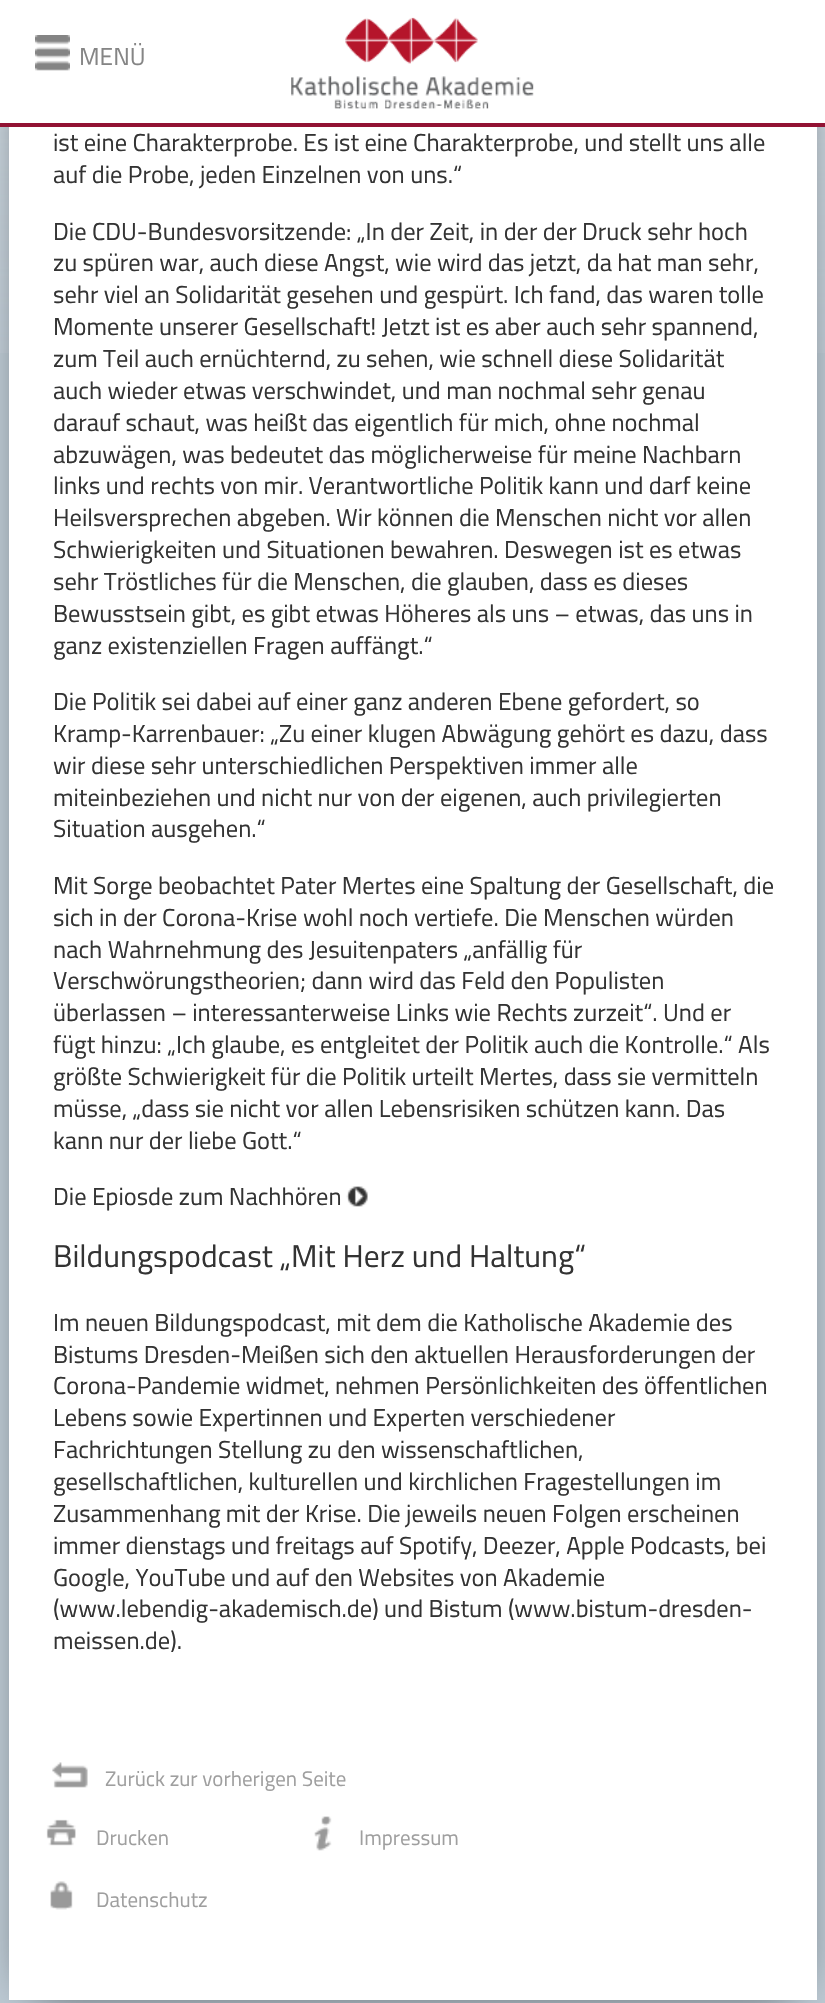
void draw(SkCanvas* canvas) {
    SkPaint paint;
    paint.setAntiAlias(true);
    canvas->clear(0xFFBCC9D3);
    canvas->drawImageRect(SkImages::DeferredFromEncodedData(SkData::MakeFromFileName("img3.png")), SkRect::MakeXYWH(0, 127, 825, 226), SkSamplingOptions());
    paint.setColor(0xFF000000);
    paint.setMaskFilter(SkMaskFilter::MakeBlur(kNormal_SkBlurStyle, 22));
    canvas->drawRect(SkRect::MakeXYWH(35, -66, 756, 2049), paint);
    paint.setMaskFilter(nullptr);
    paint.setColor(0xFFFFFFFF);
    canvas->drawRect(SkRect::MakeXYWH(0, 0, 825, 123), paint);
    paint.setColor(0xFF921233);
    canvas->drawRect(SkRect::MakeXYWH(0, 123, 825, 4), paint);
    canvas->drawImageRect(SkImages::DeferredFromEncodedData(SkData::MakeFromFileName("img1.png")), SkRect::MakeXYWH(35, 35, 35, 36), SkSamplingOptions());
    SkFont font1(fontMgr->matchFamilyStyle("Titillium Web", SkFontStyle::Normal()), 24.5f);
    font1.setSubpixel(true);
    paint.setColor(0xFF858585);
    canvas->drawString("MENÜ", 79, 65, font1, paint);
    canvas->drawImageRect(SkImages::DeferredFromEncodedData(SkData::MakeFromFileName("img2.png")), SkRect::MakeXYWH(291, 17, 243, 92), SkSamplingOptions());
    paint.setColor(0xFFFFFFFF);
    canvas->drawRect(SkRect::MakeXYWH(9, 127, 808, 1873), paint);
    paint.setColor(0xFF333333);
    canvas->drawString("ist eine Charakterprobe. Es ist eine Charakterprobe, und stellt uns alle", 53, 151, font1, paint);
    canvas->drawString("auf die Probe, jeden Einzelnen von uns.“", 53, 183, font1, paint);
    canvas->drawString("Die CDU-Bundesvorsitzende: „In der Zeit, in der der Druck sehr hoch", 53, 240, font1, paint);
    canvas->drawString("zu spüren war, auch diese Angst, wie wird das jetzt, da hat man sehr,", 53, 271, font1, paint);
    canvas->drawString("sehr viel an Solidarität gesehen und gespürt. Ich fand, das waren tolle", 53, 303, font1, paint);
    canvas->drawString("Momente unserer Gesellschaft! Jetzt ist es aber auch sehr spannend,", 53, 335, font1, paint);
    canvas->drawString("zum Teil auch ernüchternd, zu sehen, wie schnell diese Solidarität", 53, 367, font1, paint);
    canvas->drawString("auch wieder etwas verschwindet, und man nochmal sehr genau", 53, 399, font1, paint);
    canvas->drawString("darauf schaut, was heißt das eigentlich für mich, ohne nochmal", 53, 431, font1, paint);
    canvas->drawString("abzuwägen, was bedeutet das möglicherweise für meine Nachbarn", 53, 463, font1, paint);
    canvas->drawString("links und rechts von mir. Verantwortliche Politik kann und darf keine", 53, 494, font1, paint);
    canvas->drawString("Heilsversprechen abgeben. Wir können die Menschen nicht vor allen", 53, 526, font1, paint);
    canvas->drawString("Schwierigkeiten und Situationen bewahren. Deswegen ist es etwas", 53, 558, font1, paint);
    canvas->drawString("sehr Tröstliches für die Menschen, die glauben, dass es dieses", 53, 590, font1, paint);
    canvas->drawString("Bewusstsein gibt, es gibt etwas Höheres als uns – etwas, das uns in", 53, 622, font1, paint);
    canvas->drawString("ganz existenziellen Fragen auffängt.“", 53, 654, font1, paint);
    canvas->drawString("Die Politik sei dabei auf einer ganz anderen Ebene gefordert, so", 53, 710, font1, paint);
    canvas->drawString("Kramp-Karrenbauer: „Zu einer klugen Abwägung gehört es dazu, dass", 53, 742, font1, paint);
    canvas->drawString("wir diese sehr unterschiedlichen Perspektiven immer alle", 53, 774, font1, paint);
    canvas->drawString("miteinbeziehen und nicht nur von der eigenen, auch privilegierten", 53, 806, font1, paint);
    canvas->drawString("Situation ausgehen.“", 53, 837, font1, paint);
    canvas->drawString("Mit Sorge beobachtet Pater Mertes eine Spaltung der Gesellschaft, die", 53, 894, font1, paint);
    canvas->drawString("sich in der Corona-Krise wohl noch vertiefe. Die Menschen würden", 53, 926, font1, paint);
    canvas->drawString("nach Wahrnehmung des Jesuitenpaters „anfällig für", 53, 958, font1, paint);
    canvas->drawString("Verschwörungstheorien; dann wird das Feld den Populisten", 53, 989, font1, paint);
    canvas->drawString("überlassen – interessanterweise Links wie Rechts zurzeit“. Und er", 53, 1021, font1, paint);
    canvas->drawString("fügt hinzu: „Ich glaube, es entgleitet der Politik auch die Kontrolle.“ Als", 53, 1053, font1, paint);
    canvas->drawString("größte Schwierigkeit für die Politik urteilt Mertes, dass sie vermitteln", 53, 1085, font1, paint);
    canvas->drawString("müsse, „dass sie nicht vor allen Lebensrisiken schützen kann. Das", 53, 1117, font1, paint);
    canvas->drawString("kann nur der liebe Gott.“", 53, 1149, font1, paint);
    canvas->drawString("Die Epiosde zum Nachhören", 53, 1205, font1, paint);
    canvas->drawImageRect(SkImages::DeferredFromEncodedData(SkData::MakeFromFileName("img4.png")), SkRect::MakeXYWH(346, 1186, 22, 21), SkSamplingOptions());
    SkFont font2(fontMgr->matchFamilyStyle("Titillium Web", SkFontStyle::Normal()), 31.5f);
    font2.setSubpixel(true);
    canvas->drawString("Bildungspodcast „Mit Herz und Haltung“", 53, 1267, font2, paint);
    canvas->drawString("Im neuen Bildungspodcast, mit dem die Katholische Akademie des", 53, 1331, font1, paint);
    canvas->drawString("Bistums Dresden-Meißen sich den aktuellen Herausforderungen der", 53, 1363, font1, paint);
    canvas->drawString("Corona-Pandemie widmet, nehmen Persönlichkeiten des öffentlichen", 53, 1394, font1, paint);
    canvas->drawString("Lebens sowie Expertinnen und Experten verschiedener", 53, 1426, font1, paint);
    canvas->drawString("Fachrichtungen Stellung zu den wissenschaftlichen,", 53, 1458, font1, paint);
    canvas->drawString("gesellschaftlichen, kulturellen und kirchlichen Fragestellungen im", 53, 1490, font1, paint);
    canvas->drawString("Zusammenhang mit der Krise. Die jeweils neuen Folgen erscheinen", 53, 1522, font1, paint);
    canvas->drawString("immer dienstags und freitags auf Spotify, Deezer, Apple Podcasts, bei", 53, 1554, font1, paint);
    canvas->drawString("Google, YouTube und auf den Websites von Akademie", 53, 1586, font1, paint);
    canvas->drawString("(www.lebendig-akademisch.de) und Bistum (www.bistum-dresden-", 53, 1617, font1, paint);
    canvas->drawString("meissen.de).", 53, 1649, font1, paint);
    canvas->drawImageRect(SkImages::DeferredFromEncodedData(SkData::MakeFromFileName("img5.png")), SkRect::MakeXYWH(52, 1762, 36, 26), SkSamplingOptions());
    SkFont font3(fontMgr->matchFamilyStyle("Titillium Web", SkFontStyle::Normal()), 21);
    font3.setSubpixel(true);
    paint.setColor(0xFF9F9F9F);
    canvas->drawString("Zurück zur vorherigen Seite", 105, 1786, font3, paint);
    canvas->drawImageRect(SkImages::DeferredFromEncodedData(SkData::MakeFromFileName("img6.png")), SkRect::MakeXYWH(46, 1819, 30, 27), SkSamplingOptions());
    canvas->drawString("Drucken", 96, 1845, font3, paint);
    canvas->drawImageRect(SkImages::DeferredFromEncodedData(SkData::MakeFromFileName("img7.png")), SkRect::MakeXYWH(314, 1816, 18, 35), SkSamplingOptions());
    canvas->drawString("Impressum", 359, 1845, font3, paint);
    canvas->drawImageRect(SkImages::DeferredFromEncodedData(SkData::MakeFromFileName("img8.png")), SkRect::MakeXYWH(50, 1881, 23, 29), SkSamplingOptions());
    canvas->drawString("Datenschutz", 96, 1907, font3, paint);
}
